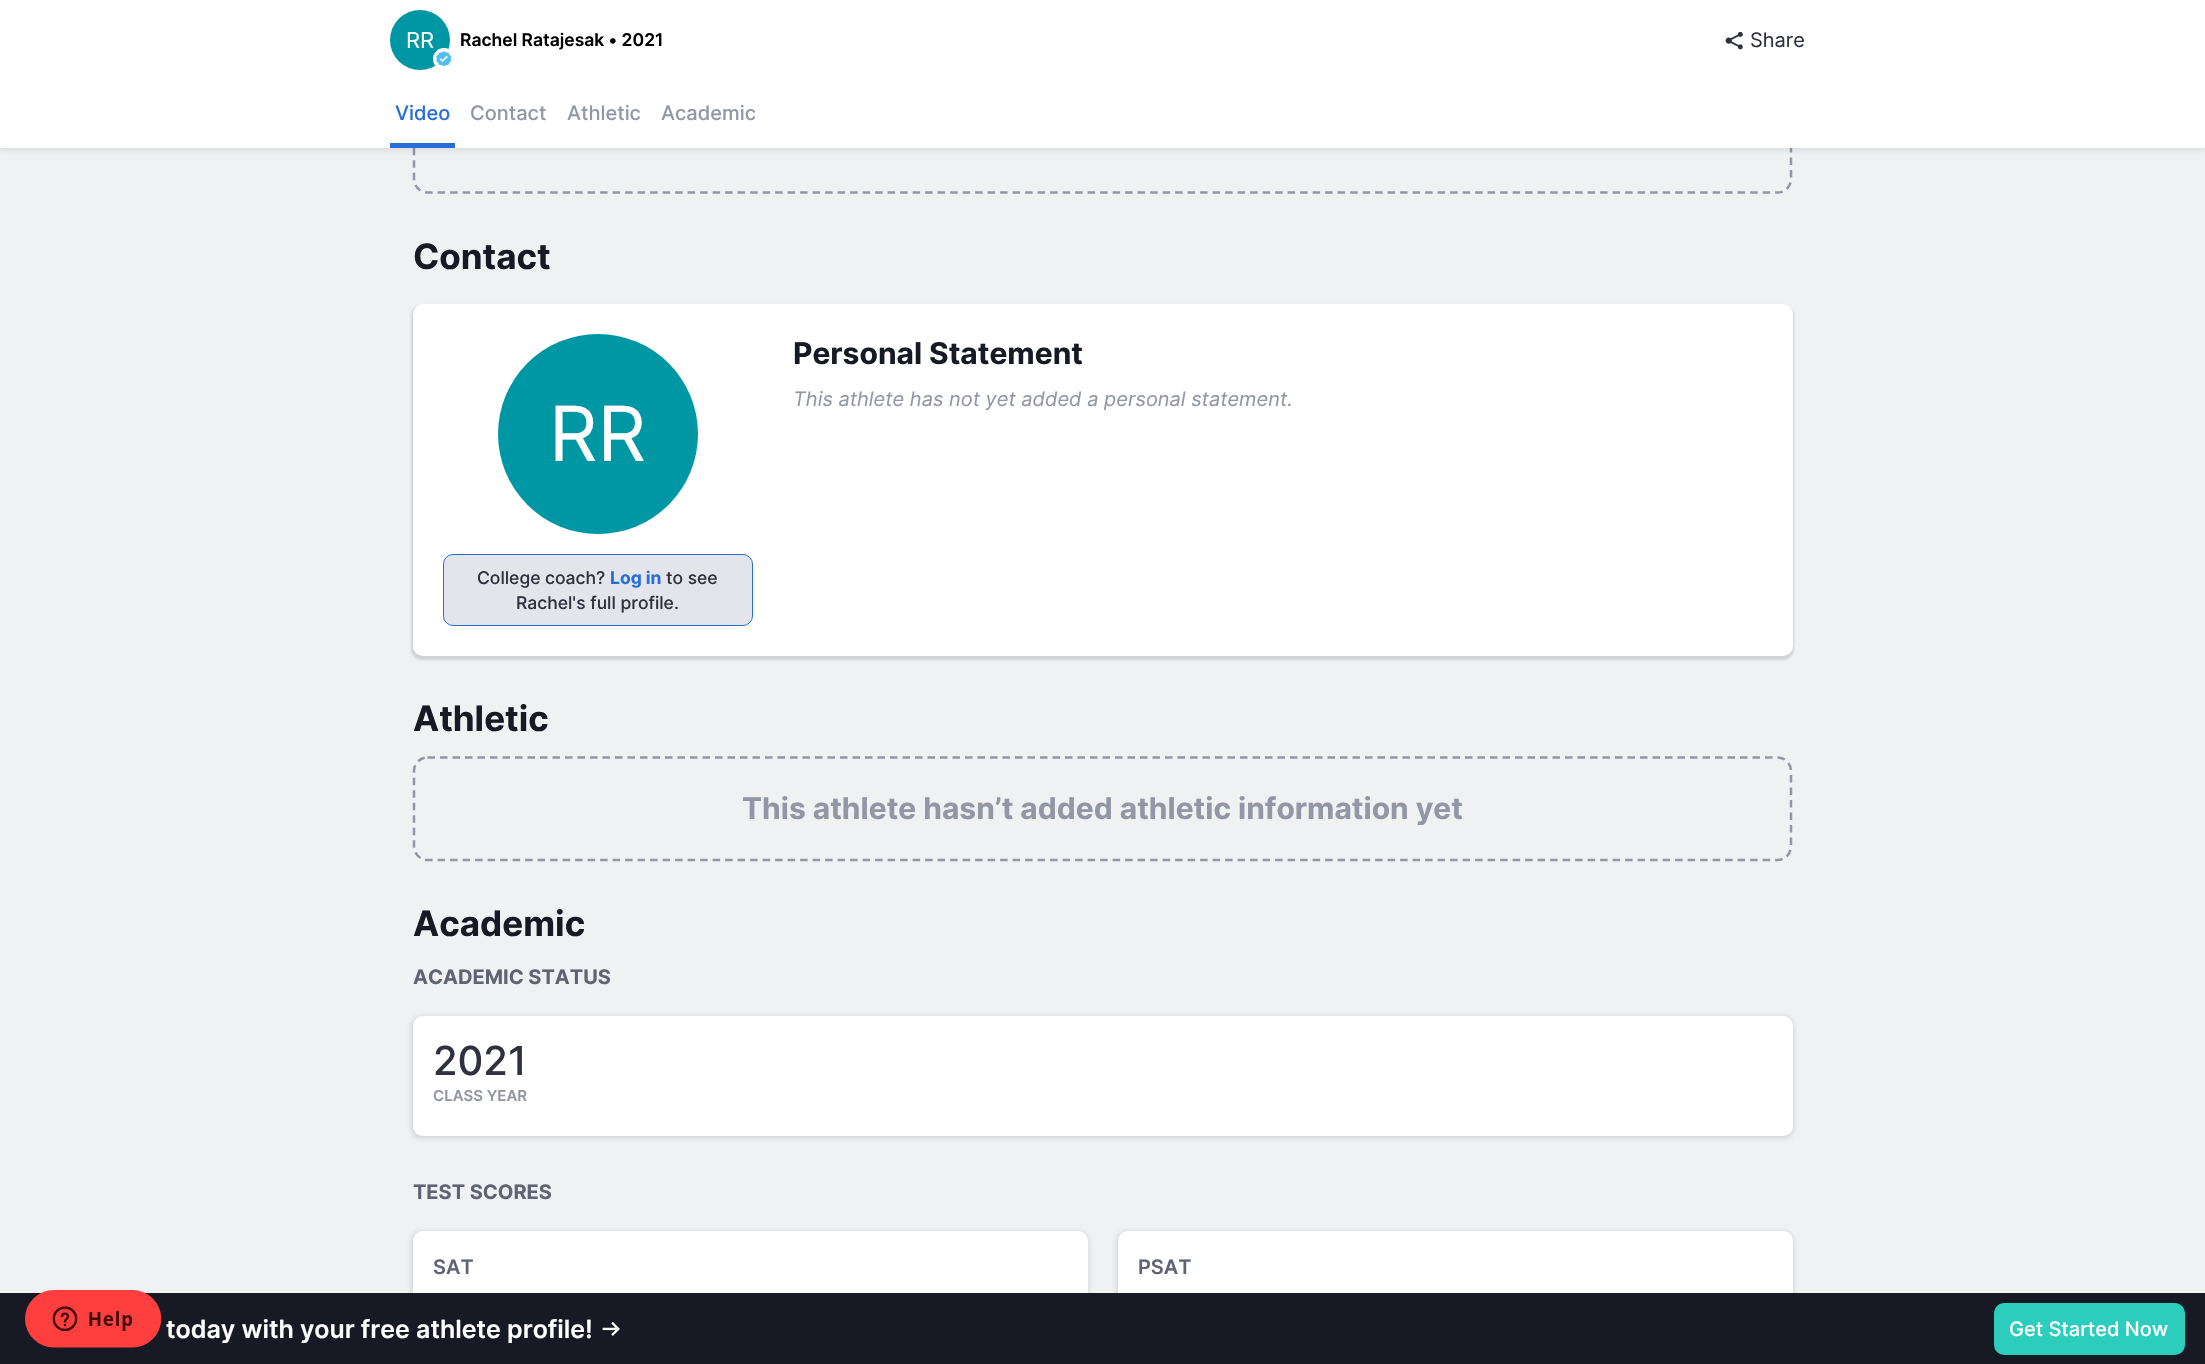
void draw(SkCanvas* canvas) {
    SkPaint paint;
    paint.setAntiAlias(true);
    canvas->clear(0xFFF0F1F3);
    paint.setColor(0x1F171924);
    paint.setMaskFilter(SkMaskFilter::MakeBlur(kNormal_SkBlurStyle, 2.5f));
    canvas->drawRoundRect(SkRect::MakeXYWH(411, 1231, 678, 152), 11, 11, paint);
    paint.setMaskFilter(nullptr);
    paint.setColor(0xFFFFFFFF);
    canvas->drawRoundRect(SkRect::MakeXYWH(413, 1231, 675, 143), 10, 10, paint);
    paint.setColor(0x1F171924);
    paint.setMaskFilter(SkMaskFilter::MakeBlur(kNormal_SkBlurStyle, 2.5f));
    canvas->drawRoundRect(SkRect::MakeXYWH(1116, 1231, 678, 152), 11, 11, paint);
    paint.setMaskFilter(nullptr);
    paint.setColor(0xFFFFFFFF);
    canvas->drawRoundRect(SkRect::MakeXYWH(1118, 1231, 675, 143), 10, 10, paint);
    paint.setColor(0xFF171924);
    canvas->drawRect(SkRect::MakeXYWH(0, 1293, 2205, 71), paint);
    canvas->drawImageRect(SkImages::DeferredFromEncodedData(SkData::MakeFromFileName("img1.png")), SkRect::MakeXYWH(25, 1290, 137, 58), SkSamplingOptions());
    paint.setStyle(SkPaint::kStroke_Style);
    paint.setStrokeWidth(2.5f);
    paint.setColor(0xFF9396A4);
    paint.setPathEffect(SkDashPathEffect::Make({{7.5f, 5}}, 0));
    canvas->drawPath(SkPathBuilder().moveTo(427.5f, 90).lineTo(1777.5f, 90).cubicTo(1785, 90, 1791, 96, 1791, 104).lineTo(1791, 179).cubicTo(1791, 186.5f, 1785, 192.5f, 1777.5f, 192.5f).lineTo(427.5f, 192.5f).cubicTo(420, 192.5f, 414, 186.5f, 414, 179).lineTo(414, 104).cubicTo(414, 96, 420, 90, 427.5f, 90).close().detach(), paint);
    paint.setPathEffect(nullptr);
    paint.setStyle(SkPaint::kFill_Style);
    paint.setColor(0x1A000000);
    paint.setMaskFilter(SkMaskFilter::MakeBlur(kNormal_SkBlurStyle, 2.5f));
    canvas->drawRect(SkRect::MakeXYWH(0, 80, 2205, 70), paint);
    paint.setMaskFilter(nullptr);
    paint.setColor(0xFFFFFFFF);
    canvas->drawRect(SkRect::MakeXYWH(0, 0, 2205, 148), paint);
    paint.setColor(0xFF0097A4);
    canvas->drawCircle(420, 40, 30, paint);
    SkFont font1(fontMgr->matchFamilyStyle("Inter", SkFontStyle::Normal()), 22);
    font1.setSubpixel(true);
    paint.setColor(0xFFFFFFFF);
    canvas->drawString("RR", 406, 48, font1, paint);
    canvas->drawCircle(444, 59, 9, paint);
    paint.setStyle(SkPaint::kStroke_Style);
    paint.setStrokeWidth(4);
    canvas->drawCircle(444, 59, 9, paint);
    canvas->drawImageRect(SkImages::DeferredFromEncodedData(SkData::MakeFromFileName("img2.png")), SkRect::MakeXYWH(436, 51, 15, 15), SkSamplingOptions());
    SkFont font2(fontMgr->matchFamilyStyle("Inter", SkFontStyle(600, SkFontStyle::kNormal_Width, SkFontStyle::kUpright_Slant)), 17.5f);
    font2.setSubpixel(true);
    paint.setStyle(SkPaint::kFill_Style);
    paint.setColor(0xFF000000);
    canvas->drawString("Rachel Ratajesak • 2021", 460, 46, font2, paint);
    canvas->drawImageRect(SkImages::DeferredFromEncodedData(SkData::MakeFromFileName("img3.png")), SkRect::MakeXYWH(1725, 31, 18, 19), SkSamplingOptions());
    SkFont font3(fontMgr->matchFamilyStyle("Inter", SkFontStyle::Normal()), 20);
    font3.setSubpixel(true);
    paint.setColor(0xFF2F313F);
    canvas->drawString("Share", 1750, 47, font3, paint);
    paint.setColor(0xFF286ED7);
    canvas->drawRect(SkRect::MakeXYWH(390, 143, 65, 5), paint);
    SkFont font4(fontMgr->matchFamilyStyle("Inter", SkFontStyle(500, SkFontStyle::kNormal_Width, SkFontStyle::kUpright_Slant)), 20);
    font4.setSubpixel(true);
    canvas->drawString("Video", 395, 120, font4, paint);
    paint.setColor(0xFF9396A4);
    canvas->drawString("Contact", 470, 120, font4, paint);
    canvas->drawString("Athletic", 567, 120, font4, paint);
    canvas->drawString("Academic", 661, 120, font4, paint);
    SkFont font5(fontMgr->matchFamilyStyle("Inter", SkFontStyle::Bold()), 35);
    font5.setSubpixel(true);
    paint.setColor(0xFF171924);
    canvas->drawString("Contact", 413, 269, font5, paint);
    paint.setColor(0x1F000000);
    paint.setMaskFilter(SkMaskFilter::MakeBlur(kNormal_SkBlurStyle, 1));
    canvas->drawRoundRect(SkRect::MakeXYWH(411, 305, 1383, 355), 11, 11, paint);
    paint.setMaskFilter(nullptr);
    paint.setColor(0xFFFFFFFF);
    canvas->drawRoundRect(SkRect::MakeXYWH(413, 304, 1380, 352), 10, 10, paint);
    SkFont font6(fontMgr->matchFamilyStyle("Inter", SkFontStyle::Bold()), 30);
    font6.setSubpixel(true);
    paint.setColor(0xFF171924);
    canvas->drawString("Personal Statement", 793, 364, font6, paint);
    SkFont font7(fontMgr->matchFamilyStyle("Inter", SkFontStyle::Italic()), 20);
    font7.setSubpixel(true);
    paint.setColor(0xFF9396A4);
    canvas->drawString("This athlete has not yet added a personal statement.", 793, 406, font7, paint);
    paint.setColor(0xFF0097A4);
    canvas->drawCircle(598, 434, 100, paint);
    SkFont font8(fontMgr->matchFamilyStyle("Inter", SkFontStyle::Normal()), 76);
    font8.setSubpixel(true);
    paint.setColor(0xFFFFFFFF);
    canvas->drawString("RR", 549, 461, font8, paint);
    paint.setColor(0xFFE4E5EA);
    canvas->drawRoundRect(SkRect::MakeXYWH(443.5f, 554.5f, 309, 71), 9.5f, 9.5f, paint);
    paint.setStyle(SkPaint::kStroke_Style);
    paint.setStrokeWidth(1);
    paint.setColor(0xFF286ED7);
    canvas->drawRoundRect(SkRect::MakeXYWH(443.5f, 554.5f, 309, 71), 9.5f, 9.5f, paint);
    SkFont font9(fontMgr->matchFamilyStyle("Inter", SkFontStyle(500, SkFontStyle::kNormal_Width, SkFontStyle::kUpright_Slant)), 17.5f);
    font9.setSubpixel(true);
    paint.setStyle(SkPaint::kFill_Style);
    paint.setColor(0xFF2F313F);
    canvas->drawString("College coach?", 477, 584, font9, paint);
    SkFont font10(fontMgr->matchFamilyStyle("Inter", SkFontStyle::Bold()), 17.5f);
    font10.setSubpixel(true);
    paint.setColor(0xFF286ED7);
    canvas->drawString("Log in", 610, 584, font10, paint);
    paint.setColor(0xFF2F313F);
    canvas->drawString("to see", 666, 584, font9, paint);
    canvas->drawString("Rachel's full profile.", 516, 609, font9, paint);
    paint.setColor(0xFF171924);
    canvas->drawString("Athletic", 413, 731, font5, paint);
    paint.setStyle(SkPaint::kStroke_Style);
    paint.setStrokeWidth(2.5f);
    paint.setColor(0xFF9396A4);
    paint.setPathEffect(SkDashPathEffect::Make({{7.5f, 5}}, 0));
    canvas->drawPath(SkPathBuilder().moveTo(427.5f, 757.5f).lineTo(1777.5f, 757.5f).cubicTo(1785, 757.5f, 1791, 763.5f, 1791, 771).lineTo(1791, 846).cubicTo(1791, 854, 1785, 860, 1777.5f, 860).lineTo(427.5f, 860).cubicTo(420, 860, 414, 854, 414, 846).lineTo(414, 771).cubicTo(414, 763.5f, 420, 757.5f, 427.5f, 757.5f).close().detach(), paint);
    paint.setPathEffect(nullptr);
    paint.setStyle(SkPaint::kFill_Style);
    canvas->drawString("This athlete hasn’t added athletic information yet", 742, 819, font6, paint);
    paint.setColor(0xFF171924);
    canvas->drawString("Academic", 413, 936, font5, paint);
    SkFont font11(fontMgr->matchFamilyStyle("Inter", SkFontStyle::Bold()), 20);
    font11.setSubpixel(true);
    paint.setColor(0xFF606374);
    canvas->drawString("ACADEMIC STATUS", 413, 984, font11, paint);
    paint.setColor(0x1F171924);
    paint.setMaskFilter(SkMaskFilter::MakeBlur(kNormal_SkBlurStyle, 2.5f));
    canvas->drawRoundRect(SkRect::MakeXYWH(411, 1016, 1383, 123), 11, 11, paint);
    paint.setMaskFilter(nullptr);
    paint.setColor(0xFFFFFFFF);
    canvas->drawRoundRect(SkRect::MakeXYWH(413, 1016, 1380, 120), 10, 10, paint);
    SkFont font12(fontMgr->matchFamilyStyle("Inter", SkFontStyle(500, SkFontStyle::kNormal_Width, SkFontStyle::kUpright_Slant)), 40);
    font12.setSubpixel(true);
    paint.setColor(0xFF2F313F);
    canvas->drawString("2021", 433, 1075, font12, paint);
    SkFont font13(fontMgr->matchFamilyStyle("Inter", SkFontStyle(600, SkFontStyle::kNormal_Width, SkFontStyle::kUpright_Slant)), 15);
    font13.setSubpixel(true);
    paint.setColor(0xFF9396A4);
    canvas->drawString("CLASS YEAR", 433, 1101, font13, paint);
    paint.setColor(0xFF606374);
    canvas->drawString("TEST SCORES", 413, 1199, font11, paint);
    SkFont font14(fontMgr->matchFamilyStyle("Inter", SkFontStyle(600, SkFontStyle::kNormal_Width, SkFontStyle::kUpright_Slant)), 20);
    font14.setSubpixel(true);
    canvas->drawString("SAT", 433, 1274, font14, paint);
    canvas->drawString("PSAT", 1138, 1274, font14, paint);
    {
        const SkColor colors[] = {0xFFF0F1F3, 0xFFF0F1F3, 0x00F0F1F3};
        const float stops[] = {0, 0.8f, 1};
        const SkPoint ends[] = {{1103, 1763}, {1103, 1276}};
        paint.setShader(SkGradientShader::MakeLinear(ends, colors, stops, 3, SkTileMode::kClamp));
        paint.setAlpha(255);
    }
    canvas->drawRect(SkRect::MakeXYWH(413, 1289, 1380, 4), paint);
    SkFont font15(fontMgr->matchFamilyStyle("Inter", SkFontStyle(600, SkFontStyle::kNormal_Width, SkFontStyle::kUpright_Slant)), 25);
    font15.setSubpixel(true);
    paint.setShader(nullptr);
    paint.setColor(0xFFFFFFFF);
    canvas->drawString("today with your free athlete profile!", 166, 1338, font15, paint);
    canvas->drawImageRect(SkImages::DeferredFromEncodedData(SkData::MakeFromFileName("img4.png")), SkRect::MakeXYWH(602, 1322, 18, 14), SkSamplingOptions());
    paint.setColor(0xFF2DCDBD);
    canvas->drawRoundRect(SkRect::MakeXYWH(1994, 1303, 191, 52), 10, 10, paint);
    paint.setColor(0xFFFFFFFF);
    canvas->drawString("Get Started Now", 2009, 1336, font4, paint);
}
